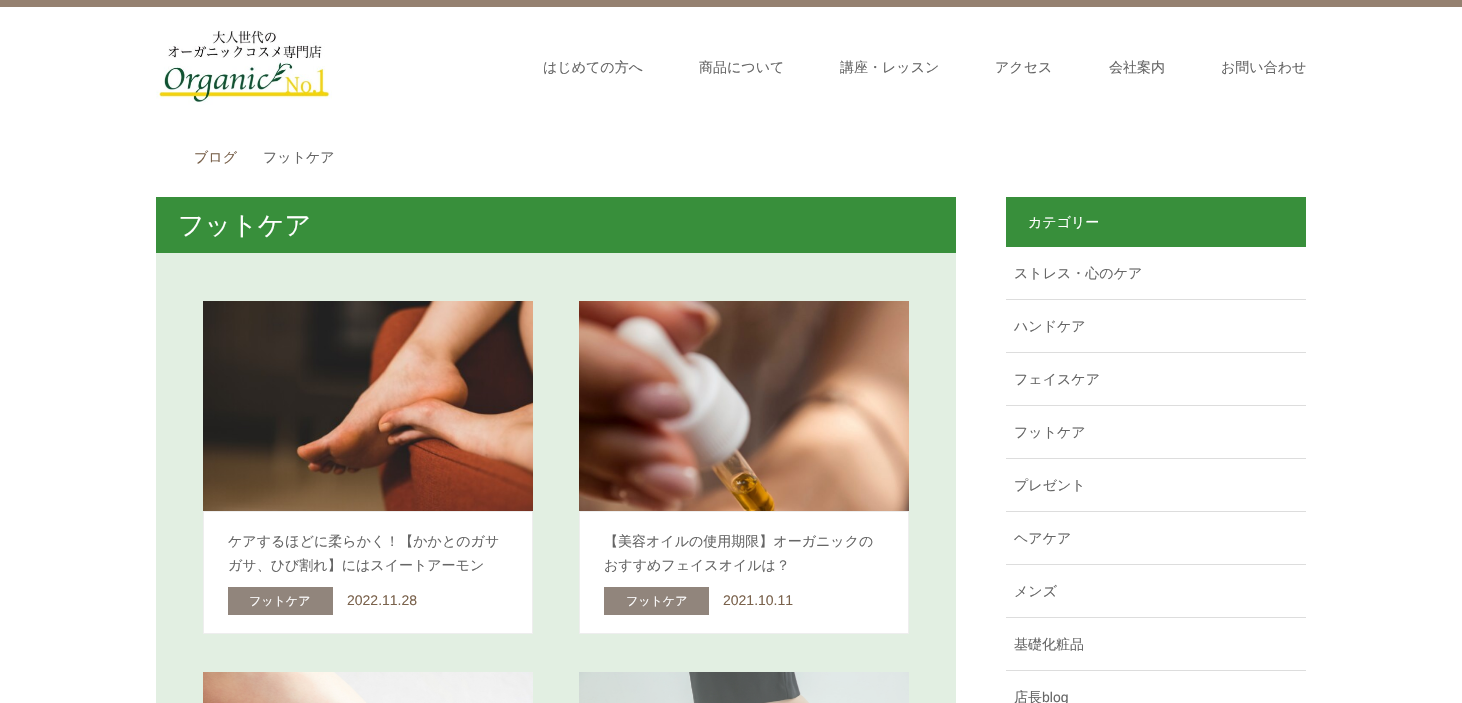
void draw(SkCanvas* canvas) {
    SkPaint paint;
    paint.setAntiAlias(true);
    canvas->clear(0xFFFFFFFF);
    paint.setColor(0xFF958170);
    canvas->drawRect(SkRect::MakeXYWH(0, 0, 1462, 7), paint);
    canvas->drawImageRect(SkImages::DeferredFromEncodedData(SkData::MakeFromFileName("img1.png")), SkRect::MakeXYWH(156, 30, 176, 75), SkSamplingOptions());
    SkFont font1(fontMgr->matchFamilyStyle("WenQuanYi Zen Hei", SkFontStyle(500, SkFontStyle::kNormal_Width, SkFontStyle::kUpright_Slant)), 14);
    font1.setSubpixel(true);
    paint.setColor(0xFF666666);
    canvas->drawString("はじめての方へ", 543, 72, font1, paint);
    canvas->drawString("商品について", 699, 72, font1, paint);
    canvas->drawString("講座・レッスン", 840, 72, font1, paint);
    canvas->drawString("アクセス", 995, 72, font1, paint);
    canvas->drawString("会社案内", 1109, 72, font1, paint);
    canvas->drawString("お問い合わせ", 1221, 72, font1, paint);
    paint.setColor(0xFF7A624C);
    canvas->drawString("ブログ", 194, 162, font1, paint);
    paint.setColor(0xFF666666);
    canvas->drawString("フットケア", 263, 162, font1, paint);
    paint.setColor(0xFF388F3B);
    canvas->drawRect(SkRect::MakeXYWH(156, 197, 800, 56), paint);
    SkFont font2(fontMgr->matchFamilyStyle("WenQuanYi Zen Hei", SkFontStyle(500, SkFontStyle::kNormal_Width, SkFontStyle::kUpright_Slant)), 26);
    font2.setSubpixel(true);
    paint.setColor(0xFFFFFFFF);
    canvas->drawString("フットケア", 178, 234, font2, paint);
    paint.setColor(0xFFE2EFE2);
    canvas->drawRect(SkRect::MakeXYWH(156, 253, 800, 450), paint);
    canvas->drawImageRect(SkImages::DeferredFromEncodedData(SkData::MakeFromFileName("img2.png")), SkRect::MakeXYWH(203, 301, 330, 210), SkSamplingOptions());
    paint.setColor(0xFFFFFFFF);
    canvas->drawRect(SkRect::MakeXYWH(203.5f, 511.5f, 329, 122), paint);
    paint.setStyle(SkPaint::kStroke_Style);
    paint.setStrokeWidth(1);
    paint.setColor(0xFFEEEEEE);
    canvas->drawRect(SkRect::MakeXYWH(203.5f, 511.5f, 329, 122), paint);
    paint.setStyle(SkPaint::kFill_Style);
    paint.setColor(0xFF666666);
    canvas->drawString("ケアするほどに柔らかく！【かかとのガサ", 228, 546, font1, paint);
    canvas->drawString("ガサ、ひび割れ】にはスイートアーモン", 228, 570, font1, paint);
    paint.setColor(0xFF91857C);
    canvas->drawRect(SkRect::MakeXYWH(228, 587, 105, 28), paint);
    SkFont font3(fontMgr->matchFamilyStyle("WenQuanYi Zen Hei", SkFontStyle(500, SkFontStyle::kNormal_Width, SkFontStyle::kUpright_Slant)), 12);
    font3.setSubpixel(true);
    paint.setColor(0xFFFFFFFF);
    canvas->drawString("フットケア", 249, 605, font3, paint);
    SkFont font4(fontMgr->matchFamilyStyle("Liberation Sans", SkFontStyle::Normal()), 14);
    font4.setSubpixel(true);
    paint.setColor(0xFF7A624C);
    canvas->drawString("2022.11.28", 347, 605, font4, paint);
    canvas->drawImageRect(SkImages::DeferredFromEncodedData(SkData::MakeFromFileName("img3.png")), SkRect::MakeXYWH(579, 301, 330, 210), SkSamplingOptions());
    paint.setColor(0xFFFFFFFF);
    canvas->drawRect(SkRect::MakeXYWH(579.5f, 511.5f, 329, 122), paint);
    paint.setStyle(SkPaint::kStroke_Style);
    paint.setColor(0xFFEEEEEE);
    canvas->drawRect(SkRect::MakeXYWH(579.5f, 511.5f, 329, 122), paint);
    paint.setStyle(SkPaint::kFill_Style);
    paint.setColor(0xFF666666);
    canvas->drawString("【美容オイルの使用期限】オーガニックの", 604, 546, font1, paint);
    canvas->drawString("おすすめフェイスオイルは？", 604, 570, font1, paint);
    paint.setColor(0xFF91857C);
    canvas->drawRect(SkRect::MakeXYWH(604, 587, 105, 28), paint);
    paint.setColor(0xFFFFFFFF);
    canvas->drawString("フットケア", 626, 605, font3, paint);
    paint.setColor(0xFF7A624C);
    canvas->drawString("2021.10.11", 723, 605, font4, paint);
    canvas->drawImageRect(SkImages::DeferredFromEncodedData(SkData::MakeFromFileName("img4.png")), SkRect::MakeXYWH(203, 672, 330, 31), SkSamplingOptions());
    canvas->drawImageRect(SkImages::DeferredFromEncodedData(SkData::MakeFromFileName("img5.png")), SkRect::MakeXYWH(579, 672, 330, 31), SkSamplingOptions());
    paint.setColor(0xFF388F3B);
    canvas->drawRect(SkRect::MakeXYWH(1006, 197, 300, 50), paint);
    paint.setColor(0xFFFFFFFF);
    canvas->drawString("カテゴリー", 1028, 227, font1, paint);
    paint.setColor(0xFFDDDDDD);
    canvas->drawRect(SkRect::MakeXYWH(1006, 299, 300, 1), paint);
    paint.setColor(0xFF666666);
    canvas->drawString("ストレス・心のケア", 1014, 278, font1, paint);
    paint.setColor(0xFFDDDDDD);
    canvas->drawRect(SkRect::MakeXYWH(1006, 352, 300, 1), paint);
    paint.setColor(0xFF666666);
    canvas->drawString("ハンドケア", 1014, 331, font1, paint);
    paint.setColor(0xFFDDDDDD);
    canvas->drawRect(SkRect::MakeXYWH(1006, 405, 300, 1), paint);
    paint.setColor(0xFF666666);
    canvas->drawString("フェイスケア", 1014, 384, font1, paint);
    paint.setColor(0xFFDDDDDD);
    canvas->drawRect(SkRect::MakeXYWH(1006, 458, 300, 1), paint);
    paint.setColor(0xFF666666);
    canvas->drawString("フットケア", 1014, 437, font1, paint);
    paint.setColor(0xFFDDDDDD);
    canvas->drawRect(SkRect::MakeXYWH(1006, 511, 300, 1), paint);
    paint.setColor(0xFF666666);
    canvas->drawString("プレゼント", 1014, 490, font1, paint);
    paint.setColor(0xFFDDDDDD);
    canvas->drawRect(SkRect::MakeXYWH(1006, 564, 300, 1), paint);
    paint.setColor(0xFF666666);
    canvas->drawString("ヘアケア", 1014, 543, font1, paint);
    paint.setColor(0xFFDDDDDD);
    canvas->drawRect(SkRect::MakeXYWH(1006, 617, 300, 1), paint);
    paint.setColor(0xFF666666);
    canvas->drawString("メンズ", 1014, 596, font1, paint);
    paint.setColor(0xFFDDDDDD);
    canvas->drawRect(SkRect::MakeXYWH(1006, 670, 300, 1), paint);
    paint.setColor(0xFF666666);
    canvas->drawString("基礎化粧品", 1014, 649, font1, paint);
    canvas->drawString("店長", 1014, 702, font1, paint);
    canvas->drawString("blog", 1042, 702, font4, paint);
}
